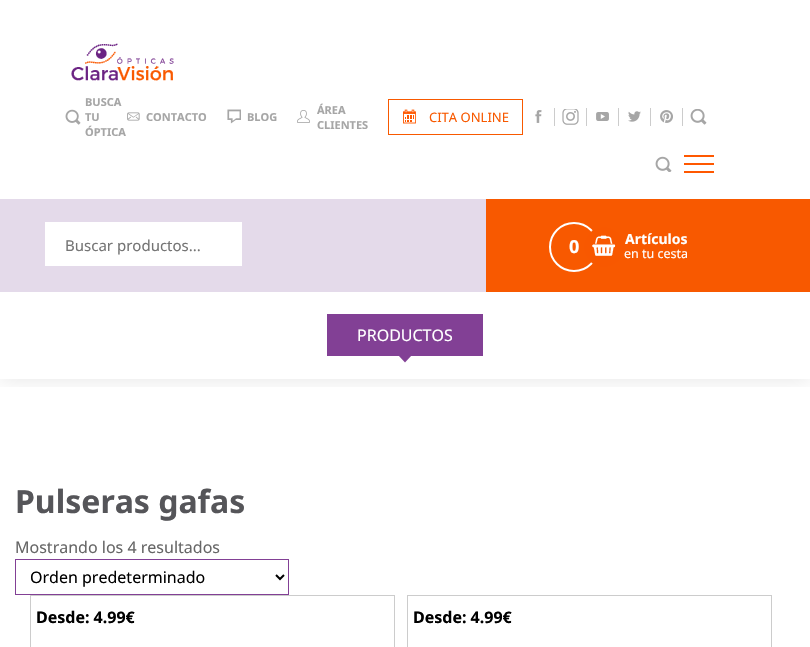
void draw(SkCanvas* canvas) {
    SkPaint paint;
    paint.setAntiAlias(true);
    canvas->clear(0xFFFFFFFF);
    canvas->save();
    canvas->clipRect(SkRect::MakeXYWH(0, 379, 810, 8));
    paint.setColor(0x1A000000);
    paint.setMaskFilter(SkMaskFilter::MakeBlur(kNormal_SkBlurStyle, 10));
    canvas->drawRect(SkRect::MakeXYWH(0, 0, 810, 379), paint);
    paint.setMaskFilter(nullptr);
    canvas->restore();
    canvas->drawImageRect(SkImages::DeferredFromEncodedData(SkData::MakeFromFileName("img1.png")), SkRect::MakeXYWH(71, 43, 103, 38), SkSamplingOptions());
    canvas->drawImageRect(SkImages::DeferredFromEncodedData(SkData::MakeFromFileName("img2.png")), SkRect::MakeXYWH(65, 109, 16, 16), SkSamplingOptions());
    SkFont font1(fontMgr->matchFamilyStyle("Noto Sans", SkFontStyle::Bold()), 11);
    font1.setSubpixel(true);
    paint.setColor(0xFFA6A6A6);
    canvas->drawString("BUSCA", 85, 106, font1, paint);
    canvas->drawString("TU", 85, 121, font1, paint);
    canvas->drawString("ÓPTICA", 85, 136, font1, paint);
    canvas->drawImageRect(SkImages::DeferredFromEncodedData(SkData::MakeFromFileName("img3.png")), SkRect::MakeXYWH(127, 112, 13, 9), SkSamplingOptions());
    canvas->drawString("CONTACTO", 146, 121, font1, paint);
    canvas->drawImageRect(SkImages::DeferredFromEncodedData(SkData::MakeFromFileName("img4.png")), SkRect::MakeXYWH(227, 109, 14, 15), SkSamplingOptions());
    canvas->drawString("BLOG", 247, 121, font1, paint);
    canvas->drawImageRect(SkImages::DeferredFromEncodedData(SkData::MakeFromFileName("img5.png")), SkRect::MakeXYWH(297, 110, 13, 13), SkSamplingOptions());
    canvas->drawString("ÁREA", 317, 114, font1, paint);
    canvas->drawString("CLIENTES", 317, 129, font1, paint);
    canvas->drawImageRect(SkImages::DeferredFromEncodedData(SkData::MakeFromFileName("img6.png")), SkRect::MakeXYWH(403, 109, 13, 15), SkSamplingOptions());
    paint.setStyle(SkPaint::kStroke_Style);
    paint.setStrokeWidth(1);
    paint.setColor(0xFFF85900);
    canvas->drawRect(SkRect::MakeXYWH(388.5f, 99.5f, 134, 35), paint);
    SkFont font2(fontMgr->matchFamilyStyle("Noto Sans", SkFontStyle::Normal()), 13);
    font2.setSubpixel(true);
    paint.setStyle(SkPaint::kFill_Style);
    canvas->drawString("CITA ONLINE", 429, 122, font2, paint);
    paint.setColor(0xFFCCCCCC);
    canvas->drawRect(SkRect::MakeXYWH(554, 108, 1, 18), paint);
    canvas->drawImageRect(SkImages::DeferredFromEncodedData(SkData::MakeFromFileName("img7.png")), SkRect::MakeXYWH(535, 110, 7, 13), SkSamplingOptions());
    canvas->drawRect(SkRect::MakeXYWH(586, 108, 1, 18), paint);
    canvas->drawImageRect(SkImages::DeferredFromEncodedData(SkData::MakeFromFileName("img8.png")), SkRect::MakeXYWH(562, 109, 17, 16), SkSamplingOptions());
    canvas->drawRect(SkRect::MakeXYWH(618, 108, 1, 18), paint);
    canvas->drawImageRect(SkImages::DeferredFromEncodedData(SkData::MakeFromFileName("img9.png")), SkRect::MakeXYWH(596, 112, 13, 9), SkSamplingOptions());
    canvas->drawRect(SkRect::MakeXYWH(650, 108, 1, 18), paint);
    canvas->drawImageRect(SkImages::DeferredFromEncodedData(SkData::MakeFromFileName("img10.png")), SkRect::MakeXYWH(628, 111, 13, 11), SkSamplingOptions());
    canvas->drawRect(SkRect::MakeXYWH(682, 108, 1, 18), paint);
    canvas->drawImageRect(SkImages::DeferredFromEncodedData(SkData::MakeFromFileName("img11.png")), SkRect::MakeXYWH(660, 110, 13, 13), SkSamplingOptions());
    canvas->drawImageRect(SkImages::DeferredFromEncodedData(SkData::MakeFromFileName("img12.png")), SkRect::MakeXYWH(690, 109, 17, 16), SkSamplingOptions());
    canvas->drawImageRect(SkImages::DeferredFromEncodedData(SkData::MakeFromFileName("img13.png")), SkRect::MakeXYWH(655, 156, 17, 16), SkSamplingOptions());
    paint.setColor(0xFFFF5800);
    canvas->drawRect(SkRect::MakeXYWH(684, 155, 30, 2), paint);
    canvas->drawRect(SkRect::MakeXYWH(684, 163, 30, 2), paint);
    canvas->drawRect(SkRect::MakeXYWH(684, 171, 30, 2), paint);
    paint.setColor(0xFFE4DAEA);
    canvas->drawRect(SkRect::MakeXYWH(0, 199, 486, 93), paint);
    paint.setColor(0xFFF85900);
    canvas->drawRect(SkRect::MakeXYWH(486, 199, 324, 93), paint);
    paint.setColor(0xFFFFFFFF);
    canvas->drawRect(SkRect::MakeXYWH(45, 222, 197, 44), paint);
    SkFont font3(fontMgr->matchFamilyStyle("Noto Sans", SkFontStyle::Normal()), 15);
    font3.setSubpixel(true);
    paint.setColor(0xFF757575);
    canvas->drawString("Buscar productos...", 65, 251, font3, paint);
    paint.setStyle(SkPaint::kStroke_Style);
    paint.setStrokeWidth(2);
    paint.setColor(0xFFFFFFFF);
    canvas->drawCircle(574, 247, 24, paint);
    SkFont font4(fontMgr->matchFamilyStyle("Noto Sans", SkFontStyle::Bold()), 18);
    font4.setSubpixel(true);
    paint.setStyle(SkPaint::kFill_Style);
    canvas->drawString("0", 569, 253, font4, paint);
    paint.setColor(0xFFF85800);
    canvas->drawCircle(604, 247, 20, paint);
    canvas->drawImageRect(SkImages::DeferredFromEncodedData(SkData::MakeFromFileName("img14.png")), SkRect::MakeXYWH(592, 235, 24, 21), SkSamplingOptions());
    SkFont font5(fontMgr->matchFamilyStyle("Noto Sans", SkFontStyle::Bold()), 14);
    font5.setSubpixel(true);
    paint.setColor(0xFFFFFFFF);
    canvas->drawString("Artículos", 625, 244, font5, paint);
    SkFont font6(fontMgr->matchFamilyStyle("Noto Sans", SkFontStyle::Normal()), 12.5f);
    font6.setSubpixel(true);
    canvas->drawString("en tu cesta", 624, 258, font6, paint);
    paint.setColor(0xFF824095);
    canvas->drawRect(SkRect::MakeXYWH(327, 314, 156, 42), paint);
    SkFont font7(fontMgr->matchFamilyStyle("Noto Sans", SkFontStyle::Normal()), 16);
    font7.setSubpixel(true);
    paint.setColor(0xFFFFFFFF);
    canvas->drawString("PRODUCTOS", 357, 341, font7, paint);
    paint.setColor(0xFF824095);
    canvas->drawPath(SkPathBuilder().moveTo(405, 348).lineTo(412, 355).lineTo(405, 362.5f).lineTo(398, 355).close().detach(), paint);
    SkFont font8(fontMgr->matchFamilyStyle("Noto Sans", SkFontStyle::Bold()), 32);
    font8.setSubpixel(true);
    paint.setColor(0xFF555559);
    canvas->drawString("Pulseras gafas", 15, 513, font8, paint);
    paint.setColor(0xFF666666);
    canvas->drawString("Mostrando los 4 resultados", 15, 553, font7, paint);
    paint.setStyle(SkPaint::kStroke_Style);
    paint.setStrokeWidth(1);
    paint.setColor(0xFF824095);
    canvas->drawRect(SkRect::MakeXYWH(15.5f, 559.5f, 273, 35), paint);
    paint.setStrokeWidth(2);
    paint.setColor(0xFF000000);
    canvas->drawPath(SkPathBuilder().moveTo(276, 575).lineTo(280, 579).lineTo(284, 575).detach(), paint);
    paint.setStyle(SkPaint::kFill_Style);
    canvas->drawString("Orden predeterminado", 30, 583, font7, paint);
    paint.setStyle(SkPaint::kStroke_Style);
    paint.setStrokeWidth(1);
    paint.setColor(0xFFCCCCCC);
    canvas->drawRect(SkRect::MakeXYWH(30.5f, 595.5f, 364, 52), paint);
    SkFont font9(fontMgr->matchFamilyStyle("Noto Sans", SkFontStyle::Bold()), 16);
    font9.setSubpixel(true);
    paint.setStyle(SkPaint::kFill_Style);
    paint.setColor(0xFF000000);
    canvas->drawString("Desde: 4.99€", 36, 623, font9, paint);
    paint.setStyle(SkPaint::kStroke_Style);
    paint.setColor(0xFFCCCCCC);
    canvas->drawRect(SkRect::MakeXYWH(407.5f, 595.5f, 364, 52), paint);
    paint.setStyle(SkPaint::kFill_Style);
    paint.setColor(0xFF000000);
    canvas->drawString("Desde: 4.99€", 413, 623, font9, paint);
}
